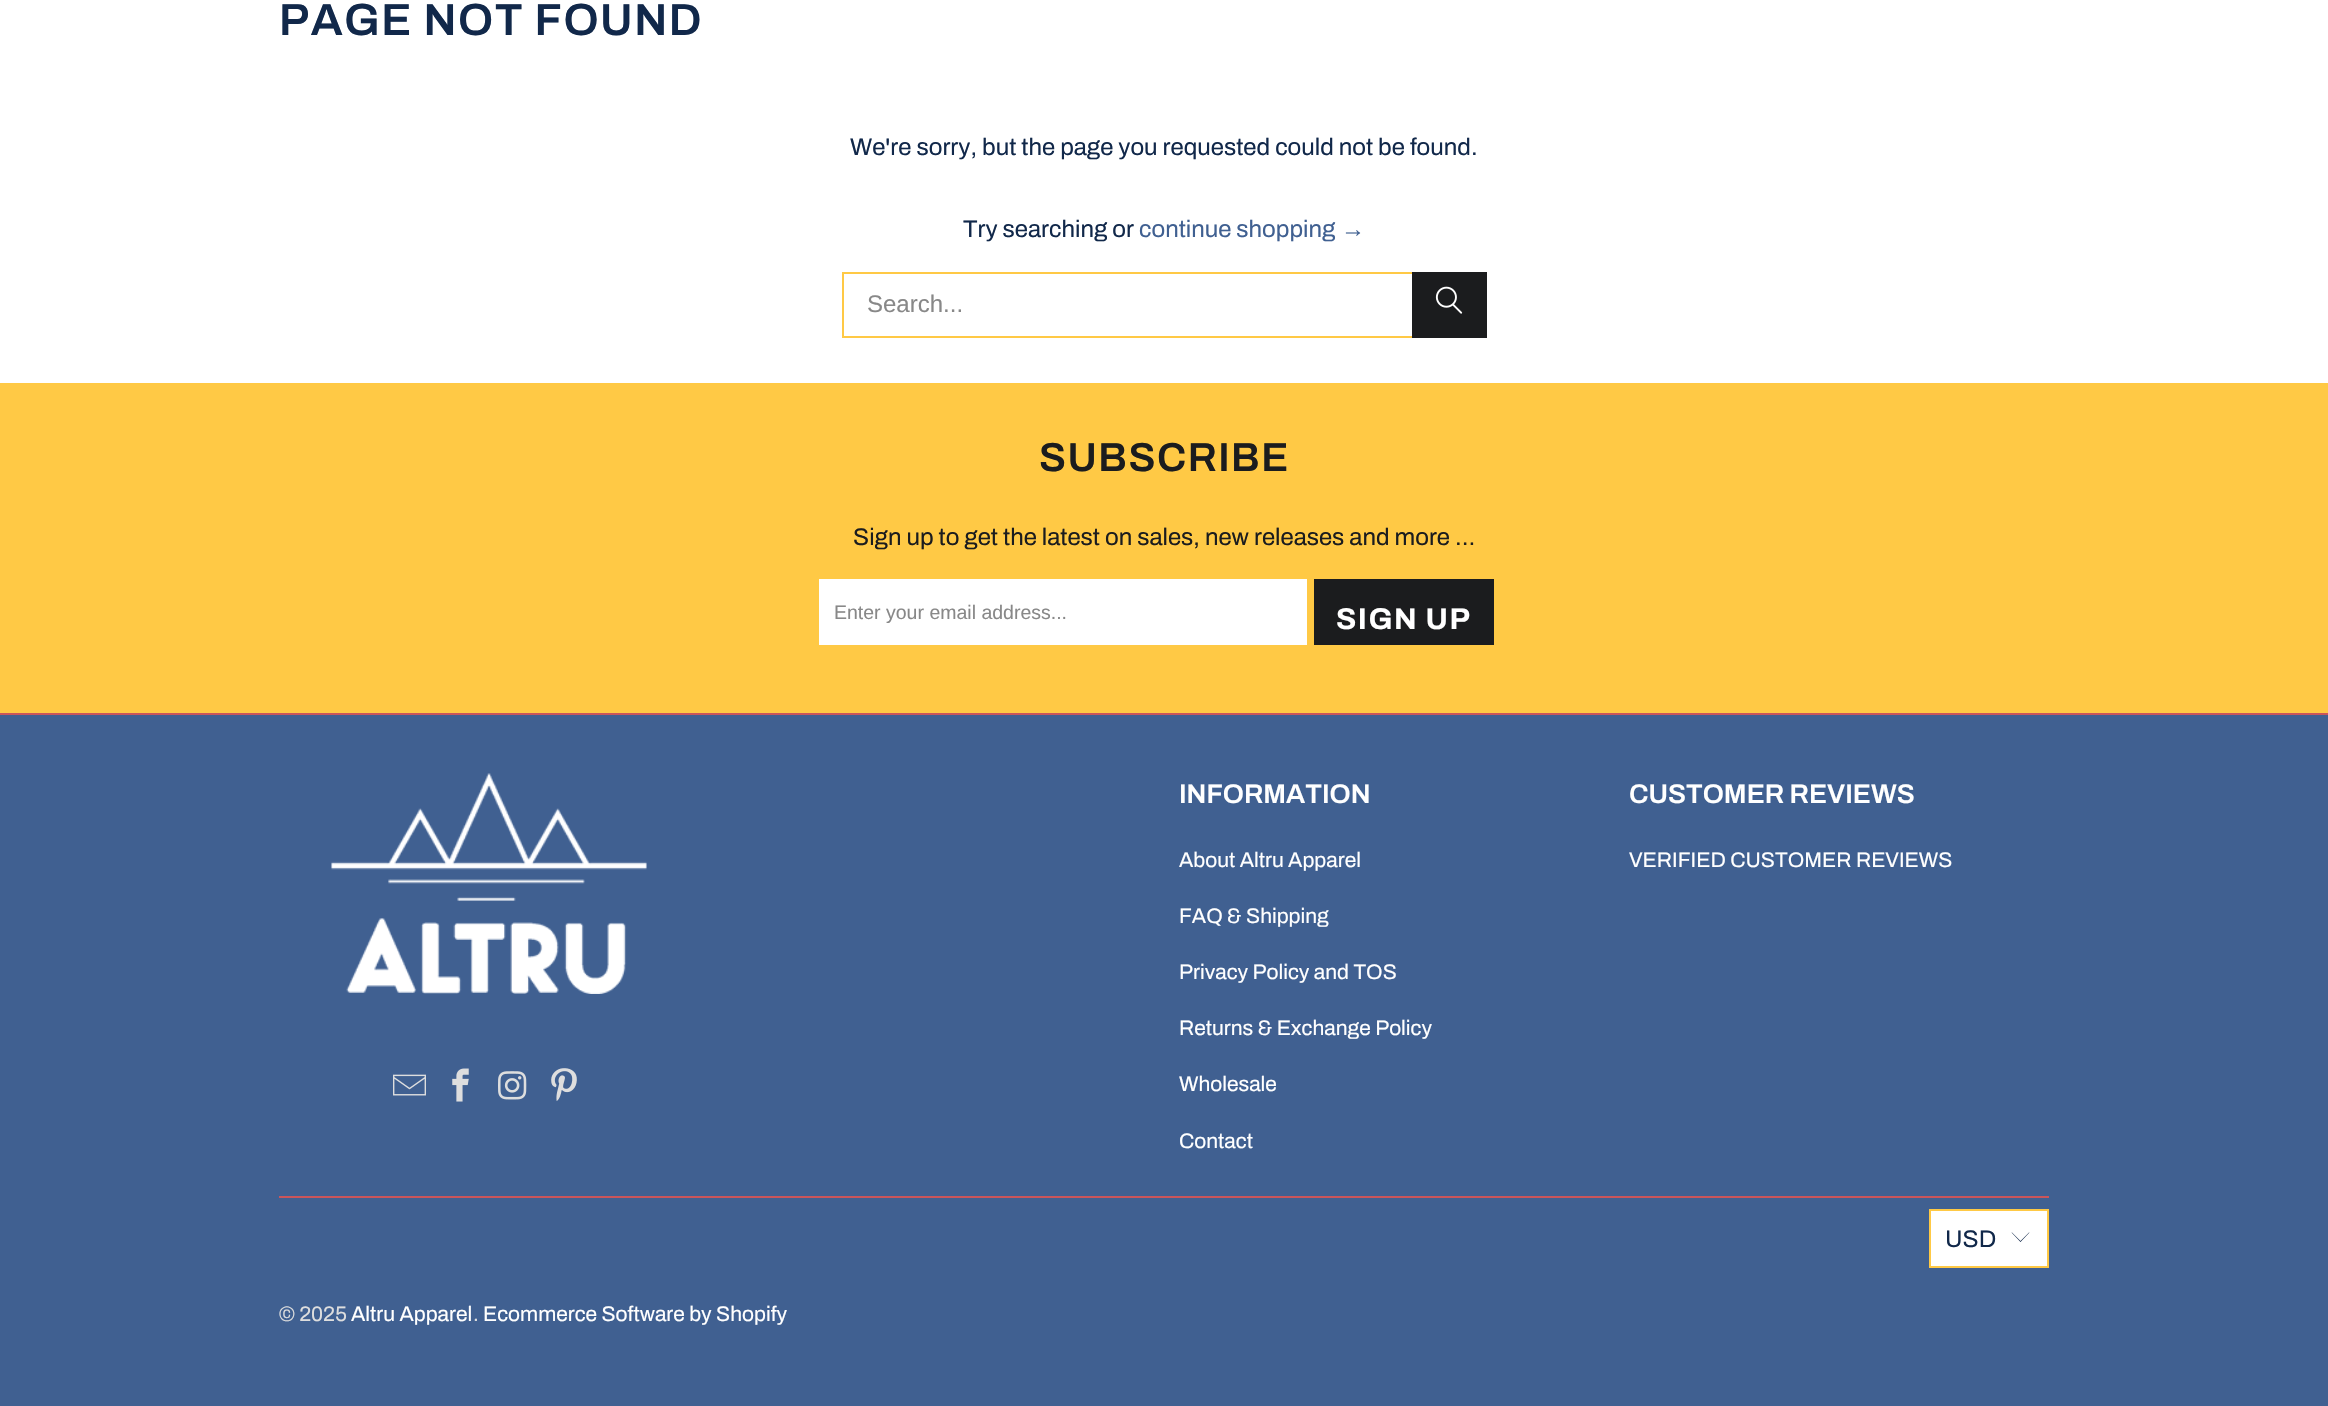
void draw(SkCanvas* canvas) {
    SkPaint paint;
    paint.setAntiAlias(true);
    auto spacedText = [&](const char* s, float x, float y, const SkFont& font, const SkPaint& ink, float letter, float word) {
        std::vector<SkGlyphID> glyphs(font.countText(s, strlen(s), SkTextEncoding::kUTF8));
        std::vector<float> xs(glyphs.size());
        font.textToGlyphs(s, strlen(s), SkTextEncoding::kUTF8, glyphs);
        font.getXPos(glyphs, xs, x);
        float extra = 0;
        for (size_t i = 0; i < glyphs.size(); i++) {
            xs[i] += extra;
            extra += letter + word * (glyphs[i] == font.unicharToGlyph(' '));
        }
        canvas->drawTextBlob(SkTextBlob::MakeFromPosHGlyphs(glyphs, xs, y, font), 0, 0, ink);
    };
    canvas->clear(0xFFFFFFFF);
    SkFont font1(fontMgr->matchFamilyStyle("Archivo", SkFontStyle(600, SkFontStyle::kNormal_Width, SkFontStyle::kUpright_Slant)), 45);
    font1.setSubpixel(true);
    paint.setColor(0xFF11284A);
    spacedText("PAGE NOT FOUND", 279, 35, font1, paint, 1.5f, 0);
    SkFont font2(fontMgr->matchFamilyStyle("Archivo", SkFontStyle::Normal()), 24);
    font2.setSubpixel(true);
    canvas->drawString("We're sorry, but the page you requested could not be found.", 850, 155, font2, paint);
    canvas->drawString("Try searching or", 963, 237, font2, paint);
    paint.setColor(0xFF406091);
    canvas->drawString("continue shopping", 1139, 237, font2, paint);
    SkFont font3(fontMgr->matchFamilyStyle("Liberation Sans", SkFontStyle::Normal()), 24);
    font3.setSubpixel(true);
    canvas->drawString("→", 1341, 237, font3, paint);
    paint.setStyle(SkPaint::kStroke_Style);
    paint.setStrokeWidth(2);
    paint.setColor(0xFFFFC945);
    canvas->drawRect(SkRect::MakeXYWH(843, 273, 643, 64), paint);
    paint.setStyle(SkPaint::kFill_Style);
    paint.setColor(0xFF888888);
    canvas->drawString("Search...", 867, 312, font3, paint);
    paint.setColor(0xFF1B1C1E);
    canvas->drawRect(SkRect::MakeXYWH(1412, 272, 75, 66), paint);
    canvas->drawImageRect(SkImages::DeferredFromEncodedData(SkData::MakeFromFileName("img1.png")), SkRect::MakeXYWH(1435, 286, 28, 28), SkSamplingOptions());
    paint.setColor(0xFFFFC945);
    canvas->drawRect(SkRect::MakeXYWH(0, 383, 2328, 330), paint);
    SkFont font4(fontMgr->matchFamilyStyle("Archivo", SkFontStyle(600, SkFontStyle::kNormal_Width, SkFontStyle::kUpright_Slant)), 40.5f);
    font4.setSubpixel(true);
    paint.setColor(0xFF1B1C1E);
    spacedText("SUBSCRIBE", 1039, 471, font4, paint, 1.5f, 0);
    canvas->drawString("Sign up to get the latest on sales, new releases and more …", 853, 545, font2, paint);
    paint.setColor(0xFFFFFFFF);
    canvas->drawRect(SkRect::MakeXYWH(819, 579, 488, 66), paint);
    SkFont font5(fontMgr->matchFamilyStyle("Liberation Sans", SkFontStyle::Normal()), 19.5f);
    font5.setSubpixel(true);
    paint.setColor(0xFF888888);
    canvas->drawString("Enter your email address...", 834, 619, font5, paint);
    paint.setColor(0xFF1B1C1E);
    canvas->drawRect(SkRect::MakeXYWH(1314, 579, 180, 66), paint);
    SkFont font6(fontMgr->matchFamilyStyle("Archivo", SkFontStyle::Bold()), 30);
    font6.setSubpixel(true);
    paint.setColor(0xFFFFFFFF);
    spacedText("SIGN UP", 1336, 629, font6, paint, 1.5f, 0);
    paint.setColor(0xFF406091);
    canvas->drawRect(SkRect::MakeXYWH(0, 715, 2328, 691), paint);
    paint.setColor(0xFFCA555B);
    canvas->drawRect(SkRect::MakeXYWH(0, 713, 2328, 2), paint);
    canvas->drawImageRect(SkImages::DeferredFromEncodedData(SkData::MakeFromFileName("img2.png")), SkRect::MakeXYWH(331, 773, 316, 221), SkSamplingOptions());
    canvas->drawImageRect(SkImages::DeferredFromEncodedData(SkData::MakeFromFileName("img3.png")), SkRect::MakeXYWH(393, 1074, 33, 22), SkSamplingOptions());
    canvas->drawImageRect(SkImages::DeferredFromEncodedData(SkData::MakeFromFileName("img4.png")), SkRect::MakeXYWH(452, 1068, 17, 34), SkSamplingOptions());
    canvas->drawImageRect(SkImages::DeferredFromEncodedData(SkData::MakeFromFileName("img5.png")), SkRect::MakeXYWH(498, 1071, 29, 29), SkSamplingOptions());
    canvas->drawImageRect(SkImages::DeferredFromEncodedData(SkData::MakeFromFileName("img6.png")), SkRect::MakeXYWH(551, 1068, 26, 33), SkSamplingOptions());
    SkFont font7(fontMgr->matchFamilyStyle("Archivo", SkFontStyle(600, SkFontStyle::kNormal_Width, SkFontStyle::kUpright_Slant)), 27);
    font7.setSubpixel(true);
    paint.setColor(0xFFFFFFFF);
    canvas->drawString("INFORMATION", 1179, 803, font7, paint);
    SkFont font8(fontMgr->matchFamilyStyle("Archivo", SkFontStyle::Normal()), 21);
    font8.setSubpixel(true);
    canvas->drawString("About Altru Apparel", 1179, 867, font8, paint);
    canvas->drawString("FAQ & Shipping", 1179, 923, font8, paint);
    canvas->drawString("Privacy Policy and TOS", 1179, 979, font8, paint);
    canvas->drawString("Returns & Exchange Policy", 1179, 1035, font8, paint);
    canvas->drawString("Wholesale", 1179, 1091, font8, paint);
    canvas->drawString("Contact", 1179, 1148, font8, paint);
    canvas->drawString("CUSTOMER REVIEWS", 1629, 803, font7, paint);
    canvas->drawString("VERIFIED CUSTOMER REVIEWS", 1629, 867, font8, paint);
    paint.setColor(0xFFCA555B);
    canvas->drawRect(SkRect::MakeXYWH(279, 1196, 1770, 2), paint);
    paint.setColor(0xFFFFFFFF);
    canvas->drawRect(SkRect::MakeXYWH(1930, 1210, 118, 57), paint);
    paint.setStyle(SkPaint::kStroke_Style);
    paint.setColor(0xFFFFC945);
    canvas->drawRect(SkRect::MakeXYWH(1930, 1210, 118, 57), paint);
    paint.setStyle(SkPaint::kFill_Style);
    paint.setColor(0xFF11284A);
    canvas->drawString("USD", 1945, 1247, font2, paint);
    canvas->drawPath(SkPathBuilder().moveTo(2020.5f, 1242).lineTo(2011.5f, 1232.5f).lineTo(2012, 1232.5f).lineTo(2020.5f, 1241).lineTo(2029, 1232.5f).lineTo(2029.5f, 1232.5f).close().detach(), paint);
    paint.setColor(0xFFDEDEDE);
    canvas->drawString("© 2025", 279, 1321, font8, paint);
    paint.setColor(0xFFFFFFFF);
    canvas->drawString("Altru Apparel", 351, 1321, font8, paint);
    paint.setColor(0xFFDEDEDE);
    canvas->drawString(".", 473, 1321, font8, paint);
    paint.setColor(0xFFFFFFFF);
    canvas->drawString("Ecommerce Software by Shopify", 483, 1321, font8, paint);
}
